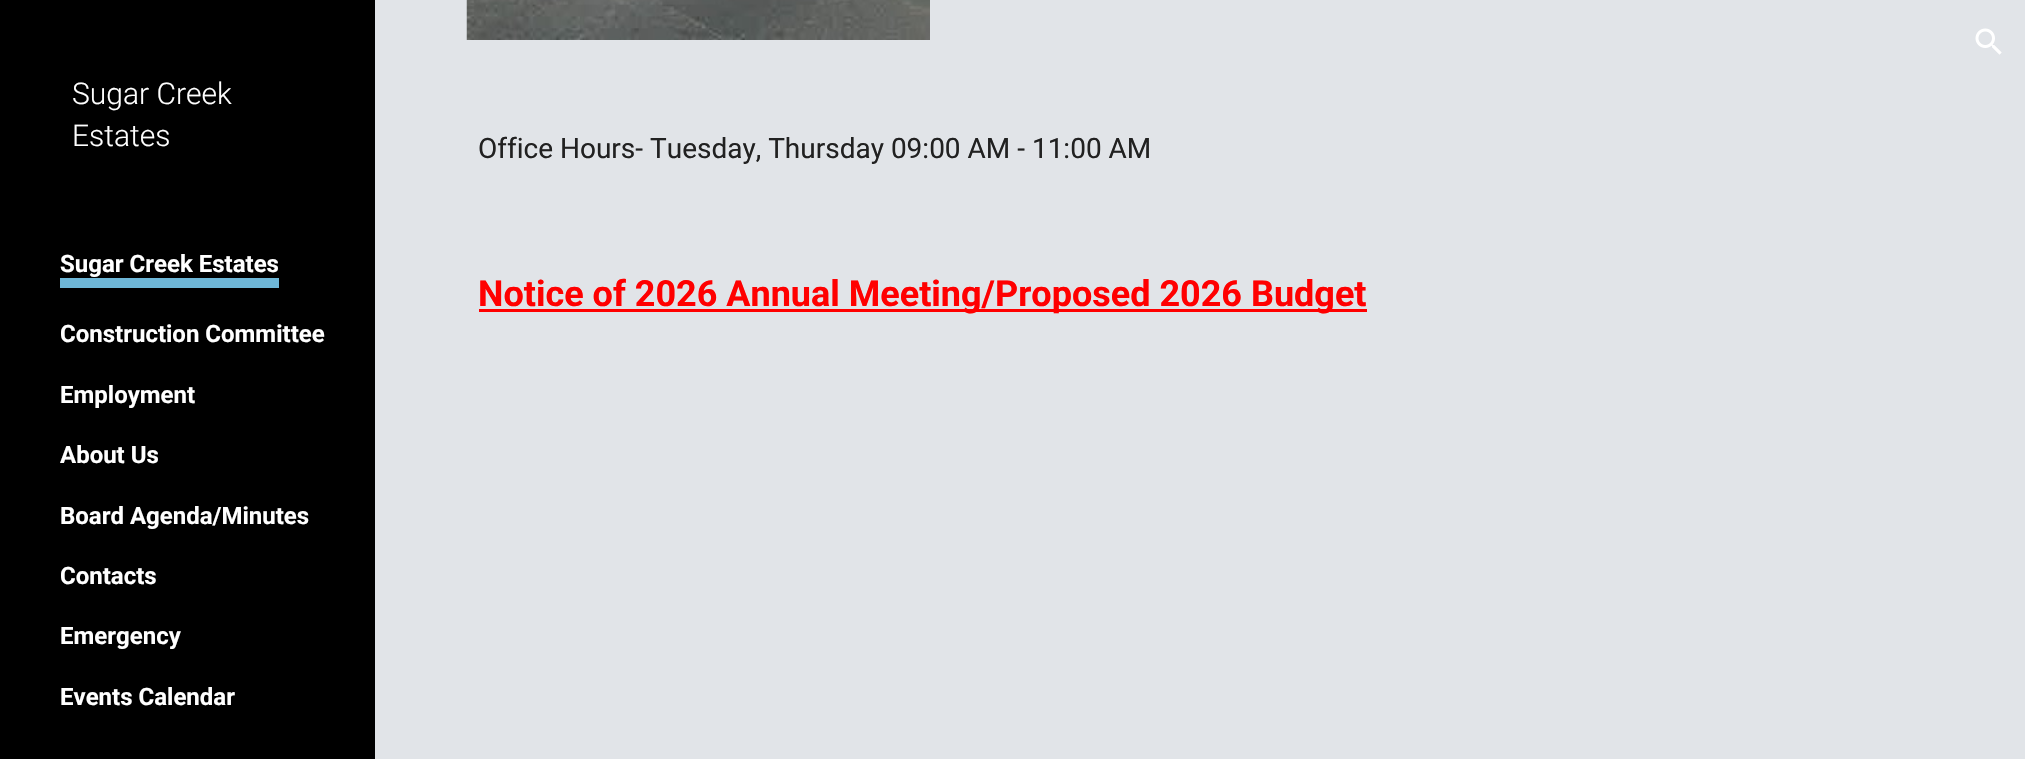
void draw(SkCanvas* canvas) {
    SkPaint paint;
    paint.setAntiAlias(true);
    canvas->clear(0xFFE1E4E8);
    canvas->drawImageRect(SkImages::DeferredFromEncodedData(SkData::MakeFromFileName("img1.png")), SkRect::MakeXYWH(1975, 28, 27, 27), SkSamplingOptions());
    paint.setColor(0xFF000000);
    canvas->drawRect(SkRect::MakeXYWH(0, 0, 375, 759), paint);
    SkFont font1(fontMgr->matchFamilyStyle("Roboto", SkFontStyle(300, SkFontStyle::kNormal_Width, SkFontStyle::kUpright_Slant)), 30);
    font1.setSubpixel(true);
    paint.setColor(0xFFFFFFFF);
    canvas->drawString("Sugar Creek", 72, 104, font1, paint);
    canvas->drawString("Estates", 72, 146, font1, paint);
    paint.setColor(0xFF6EB7D8);
    canvas->drawRect(SkRect::MakeXYWH(60, 278, 219, 10), paint);
    SkFont font2(fontMgr->matchFamilyStyle("Roboto", SkFontStyle::Bold()), 24);
    font2.setSubpixel(true);
    paint.setColor(0xFFFFFFFF);
    canvas->drawString("Sugar Creek Estates", 60, 272, font2, paint);
    canvas->drawString("Construction Committee", 60, 342, font2, paint);
    canvas->drawString("Employment", 60, 403, font2, paint);
    canvas->drawString("About Us", 60, 463, font2, paint);
    canvas->drawString("Board Agenda/Minutes", 60, 524, font2, paint);
    canvas->drawString("Contacts", 60, 584, font2, paint);
    canvas->drawString("Emergency", 60, 644, font2, paint);
    canvas->drawString("Events Calendar", 60, 705, font2, paint);
    canvas->drawImageRect(SkImages::DeferredFromEncodedData(SkData::MakeFromFileName("img2.png")), SkRect::MakeXYWH(466, 0, 464, 40), SkSamplingOptions());
    SkFont font3(fontMgr->matchFamilyStyle("Roboto", SkFontStyle::Normal()), 28);
    font3.setSubpixel(true);
    paint.setColor(0xFF212121);
    canvas->drawString("Office Hours- Tuesday, Thursday 09:00 AM - 11:00 AM", 478, 158, font3, paint);
    paint.setColor(0xFFFF0000);
    canvas->drawRect(SkRect::MakeXYWH(479, 309, 888, 3), paint);
    SkFont font4(fontMgr->matchFamilyStyle("Roboto", SkFontStyle::Bold()), 36);
    font4.setSubpixel(true);
    canvas->drawString("Notice of 2026 Annual Meeting/Proposed 2026 Budget", 478, 306, font4, paint);
}
